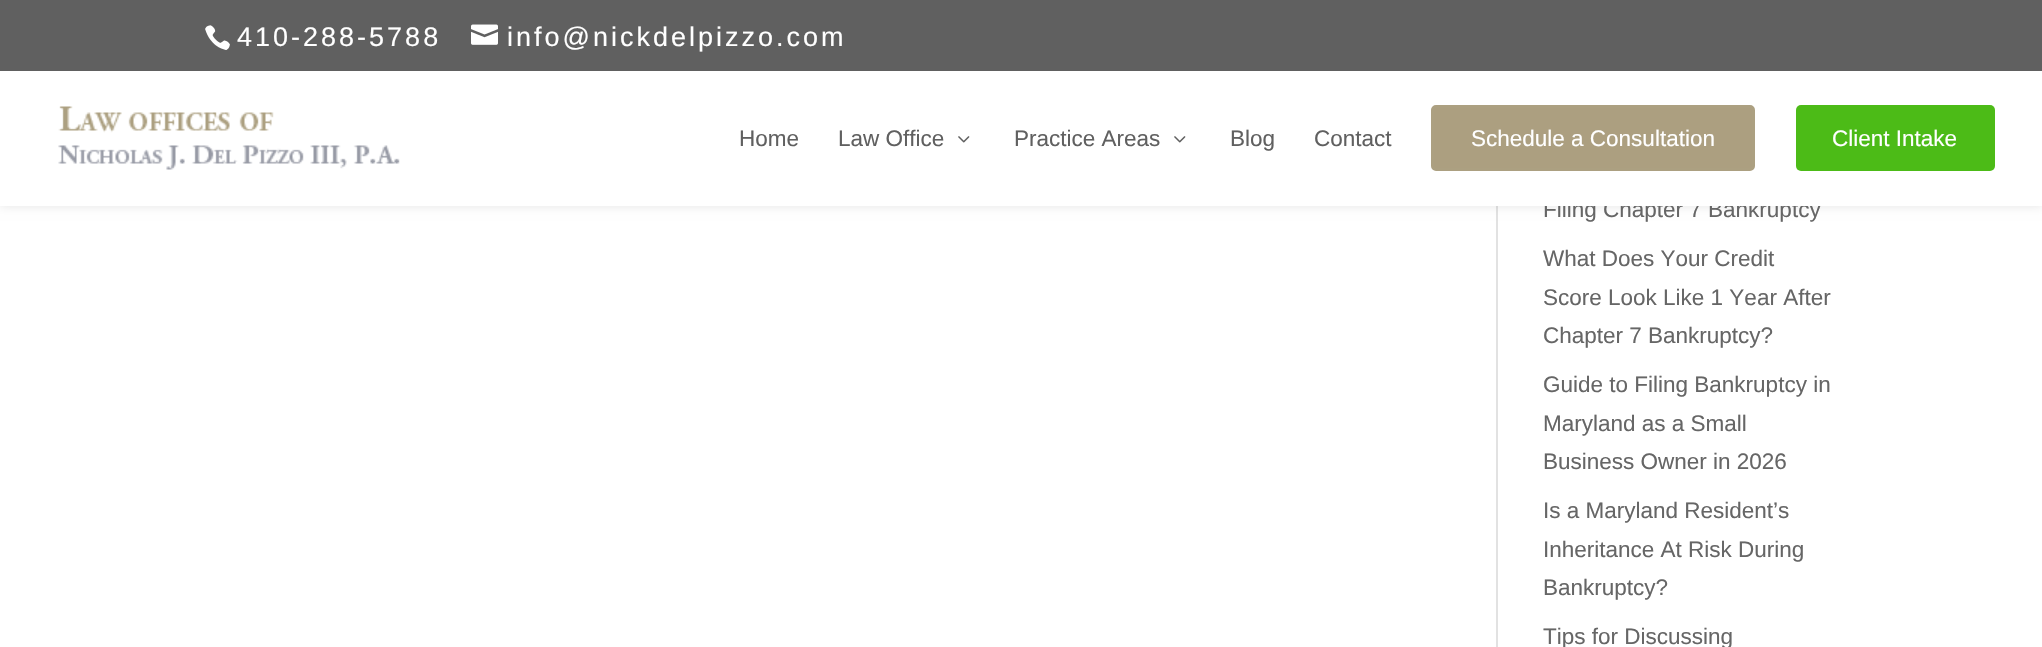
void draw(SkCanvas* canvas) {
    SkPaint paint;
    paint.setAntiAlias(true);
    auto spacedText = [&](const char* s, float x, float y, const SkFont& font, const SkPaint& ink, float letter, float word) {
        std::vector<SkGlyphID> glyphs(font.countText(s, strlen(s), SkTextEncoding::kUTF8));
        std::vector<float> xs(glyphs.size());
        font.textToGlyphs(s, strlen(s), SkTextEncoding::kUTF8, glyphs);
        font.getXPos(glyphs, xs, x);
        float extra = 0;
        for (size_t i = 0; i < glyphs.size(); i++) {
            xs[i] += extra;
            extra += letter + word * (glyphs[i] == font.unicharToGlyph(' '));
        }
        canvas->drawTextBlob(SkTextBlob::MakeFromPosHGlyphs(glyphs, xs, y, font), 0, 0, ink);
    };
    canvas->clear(0xFFFFFFFF);
    paint.setColor(0xFFE2E2E2);
    canvas->drawRect(SkRect::MakeXYWH(1496, 206, 2, 441), paint);
    paint.setColor(0x1A000000);
    paint.setMaskFilter(SkMaskFilter::MakeBlur(kNormal_SkBlurStyle, 5));
    canvas->drawRect(SkRect::MakeXYWH(0, 71, 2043, 135), paint);
    paint.setMaskFilter(nullptr);
    paint.setColor(0xFF606060);
    canvas->drawRect(SkRect::MakeXYWH(0, 0, 2042, 71), paint);
    canvas->drawImageRect(SkImages::DeferredFromEncodedData(SkData::MakeFromFileName("img1.png")), SkRect::MakeXYWH(205, 25, 25, 25), SkSamplingOptions());
    SkFont font1(fontMgr->matchFamilyStyle("Liberation Sans", SkFontStyle::Normal()), 27);
    font1.setSubpixel(true);
    paint.setColor(0xFFFFFFFF);
    spacedText("410-288-5788", 237, 46, font1, paint, 3, 0);
    canvas->drawImageRect(SkImages::DeferredFromEncodedData(SkData::MakeFromFileName("img2.png")), SkRect::MakeXYWH(471, 24, 27, 21), SkSamplingOptions());
    spacedText("info@nickdelpizzo.com", 507, 46, font1, paint, 3, 0);
    SkFont font2(fontMgr->matchFamilyStyle("Liberation Sans", SkFontStyle::Normal()), 22.5f);
    font2.setSubpixel(true);
    paint.setColor(0xFF666666);
    canvas->drawString("Filing Chapter 7 Bankruptcy", 1543, 217, font2, paint);
    paint.setColor(0xFFFFFFFF);
    canvas->drawRect(SkRect::MakeXYWH(0, 71, 2042, 135), paint);
    canvas->drawImageRect(SkImages::DeferredFromEncodedData(SkData::MakeFromFileName("img3.png")), SkRect::MakeXYWH(58, 106, 342, 64), SkSamplingOptions());
    paint.setColor(0xFF606060);
    canvas->drawString("Home", 739, 146, font2, paint);
    canvas->drawString("Law Office", 838, 146, font2, paint);
    canvas->drawImageRect(SkImages::DeferredFromEncodedData(SkData::MakeFromFileName("img4.png")), SkRect::MakeXYWH(958, 136, 12, 7), SkSamplingOptions());
    canvas->drawString("Practice Areas", 1014, 146, font2, paint);
    canvas->drawImageRect(SkImages::DeferredFromEncodedData(SkData::MakeFromFileName("img4.png")), SkRect::MakeXYWH(1174, 136, 12, 7), SkSamplingOptions());
    canvas->drawString("Blog", 1230, 146, font2, paint);
    canvas->drawString("Contact", 1314, 146, font2, paint);
    paint.setColor(0xFFAC9F80);
    canvas->drawRoundRect(SkRect::MakeXYWH(1432.5f, 106.5f, 321, 63), 3.5f, 3.5f, paint);
    paint.setStyle(SkPaint::kStroke_Style);
    paint.setStrokeWidth(3);
    paint.setColor(0xFFACA081);
    canvas->drawRoundRect(SkRect::MakeXYWH(1432.5f, 106.5f, 321, 63), 3.5f, 3.5f, paint);
    paint.setStyle(SkPaint::kFill_Style);
    paint.setColor(0xFFFFFFFF);
    canvas->drawString("Schedule a Consultation", 1471, 146, font2, paint);
    paint.setColor(0xFF4CBB17);
    canvas->drawRoundRect(SkRect::MakeXYWH(1796, 105, 199, 66), 5, 5, paint);
    paint.setColor(0xFFFFFFFF);
    canvas->drawString("Client Intake", 1832, 146, font2, paint);
    paint.setColor(0xFF666666);
    canvas->drawString("What Does Your Credit", 1543, 266, font2, paint);
    canvas->drawString("Score Look Like 1 Year After", 1543, 305, font2, paint);
    canvas->drawString("Chapter 7 Bankruptcy?", 1543, 343, font2, paint);
    canvas->drawString("Guide to Filing Bankruptcy in", 1543, 392, font2, paint);
    canvas->drawString("Maryland as a Small", 1543, 431, font2, paint);
    canvas->drawString("Business Owner in 2026", 1543, 469, font2, paint);
    canvas->drawString("Is a Maryland Resident’s", 1543, 518, font2, paint);
    canvas->drawString("Inheritance At Risk During", 1543, 557, font2, paint);
    canvas->drawString("Bankruptcy?", 1543, 595, font2, paint);
    canvas->drawString("Tips for Discussing", 1543, 644, font2, paint);
}
